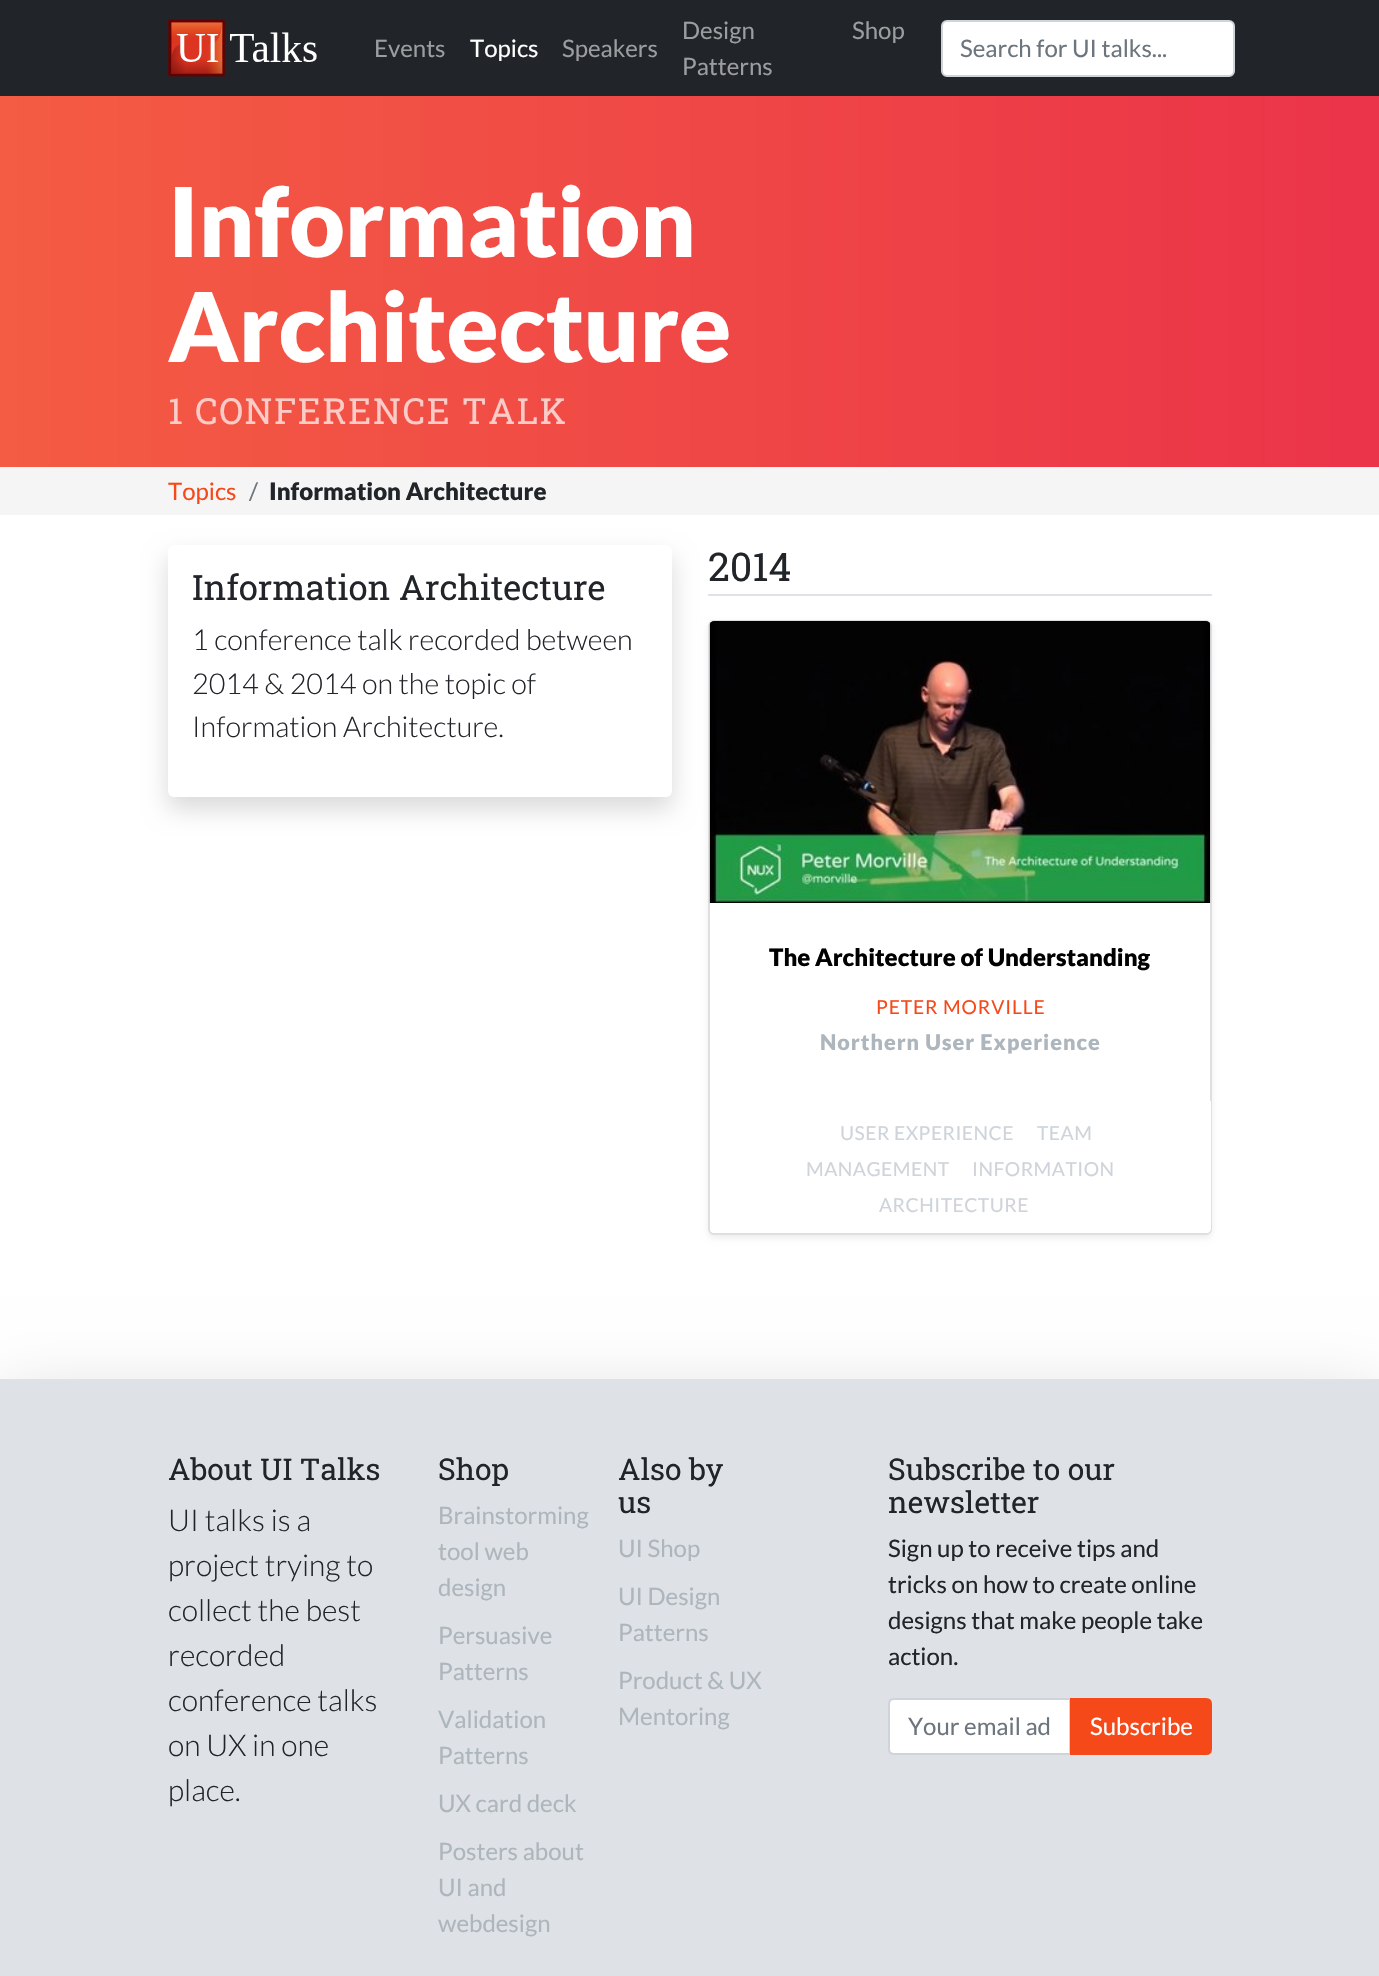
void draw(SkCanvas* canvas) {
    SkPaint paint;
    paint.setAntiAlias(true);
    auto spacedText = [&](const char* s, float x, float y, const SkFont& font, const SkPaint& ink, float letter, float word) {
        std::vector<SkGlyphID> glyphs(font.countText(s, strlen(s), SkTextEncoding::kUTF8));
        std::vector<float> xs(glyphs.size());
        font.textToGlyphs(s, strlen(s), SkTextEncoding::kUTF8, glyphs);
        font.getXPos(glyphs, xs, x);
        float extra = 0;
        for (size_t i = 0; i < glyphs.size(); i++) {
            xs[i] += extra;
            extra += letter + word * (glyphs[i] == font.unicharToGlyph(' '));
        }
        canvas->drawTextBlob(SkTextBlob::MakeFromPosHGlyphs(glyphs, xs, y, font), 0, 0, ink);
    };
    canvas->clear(0xFFFFFFFF);
    paint.setColor(0xFF212529);
    canvas->drawRect(SkRect::MakeXYWH(0, 0, 1379, 96), paint);
    canvas->drawImageRect(SkImages::DeferredFromEncodedData(SkData::MakeFromFileName("img1.png")), SkRect::MakeXYWH(168, 19, 149, 58), SkSamplingOptions());
    SkFont font1(fontMgr->matchFamilyStyle("Lato", SkFontStyle::Normal()), 24);
    font1.setSubpixel(true);
    paint.setColor(0xFF9B9D9F);
    canvas->drawString("Events", 374, 57, font1, paint);
    paint.setColor(0xFFFFFFFF);
    canvas->drawString("Topics", 470, 57, font1, paint);
    paint.setColor(0xFF9B9D9F);
    canvas->drawString("Speakers", 562, 57, font1, paint);
    canvas->drawString("Design", 682, 39, font1, paint);
    canvas->drawString("Patterns", 682, 75, font1, paint);
    canvas->drawString("Shop", 852, 39, font1, paint);
    paint.setColor(0xFFFFFFFF);
    canvas->drawRoundRect(SkRect::MakeXYWH(942, 21, 292, 55), 5, 5, paint);
    paint.setStyle(SkPaint::kStroke_Style);
    paint.setStrokeWidth(2);
    paint.setColor(0xFFCED4DA);
    canvas->drawRoundRect(SkRect::MakeXYWH(942, 21, 292, 55), 5, 5, paint);
    paint.setStyle(SkPaint::kFill_Style);
    paint.setColor(0xFF6C757D);
    canvas->drawString("Search for UI talks...", 960, 57, font1, paint);
    {
        const SkColor colors[] = {0xFFF45C43, 0xFFEB3349};
        const float stops[] = {0, 1};
        const SkPoint ends[] = {{0, 281}, {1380, 281}};
        paint.setShader(SkGradientShader::MakeLinear(ends, colors, stops, 2, SkTileMode::kClamp));
        paint.setAlpha(255);
    }
    canvas->drawRect(SkRect::MakeXYWH(0, 96, 1379, 371), paint);
    SkFont font2(fontMgr->matchFamilyStyle("Lato", SkFontStyle(900, SkFontStyle::kNormal_Width, SkFontStyle::kUpright_Slant)), 96);
    font2.setSubpixel(true);
    paint.setShader(nullptr);
    paint.setColor(0xFFFFFFFF);
    canvas->drawString("Information", 168, 257, font2, paint);
    canvas->drawString("Architecture", 168, 362, font2, paint);
    SkFont font3(fontMgr->matchFamilyStyle("Roboto Slab", SkFontStyle::Normal()), 36);
    font3.setSubpixel(true);
    paint.setColor(0xFFFBCBC7);
    spacedText("1 CONFERENCE TALK", 168, 424, font3, paint, 1.6f, 0);
    paint.setColor(0xFFF5F5F5);
    canvas->drawRect(SkRect::MakeXYWH(0, 467, 1379, 48), paint);
    paint.setColor(0xFFF6491A);
    canvas->drawString("Topics", 168, 500, font1, paint);
    paint.setColor(0xFF6C757D);
    canvas->drawString("/", 249, 500, font1, paint);
    SkFont font4(fontMgr->matchFamilyStyle("Lato", SkFontStyle(900, SkFontStyle::kNormal_Width, SkFontStyle::kUpright_Slant)), 24);
    font4.setSubpixel(true);
    paint.setColor(0xFF212529);
    canvas->drawString("Information Architecture", 269, 500, font4, paint);
    paint.setColor(0x26000000);
    paint.setMaskFilter(SkMaskFilter::MakeBlur(kNormal_SkBlurStyle, 12));
    canvas->drawRoundRect(SkRect::MakeXYWH(168, 557, 504, 252), 6, 6, paint);
    paint.setMaskFilter(nullptr);
    paint.setColor(0xFFFFFFFF);
    canvas->drawRoundRect(SkRect::MakeXYWH(168, 545, 504, 252), 6, 6, paint);
    SkFont font5(fontMgr->matchFamilyStyle("Roboto Slab", SkFontStyle::Normal()), 34.75f);
    font5.setSubpixel(true);
    paint.setColor(0xFF212529);
    canvas->drawString("Information Architecture", 192, 600, font5, paint);
    SkFont font6(fontMgr->matchFamilyStyle("Lato", SkFontStyle(300, SkFontStyle::kNormal_Width, SkFontStyle::kUpright_Slant)), 28.75f);
    font6.setSubpixel(true);
    canvas->drawString("1 conference talk recorded between", 192, 650, font6, paint);
    canvas->drawString("2014 & 2014 on the topic of", 192, 694, font6, paint);
    canvas->drawString("Information Architecture.", 192, 737, font6, paint);
    paint.setColor(0xFFDEE2E6);
    canvas->drawRect(SkRect::MakeXYWH(708, 594, 504, 2), paint);
    SkFont font7(fontMgr->matchFamilyStyle("Roboto Slab", SkFontStyle::Normal()), 39.5f);
    font7.setSubpixel(true);
    paint.setColor(0xFF212529);
    canvas->drawString("2014", 708, 581, font7, paint);
    paint.setColor(0x12000000);
    paint.setMaskFilter(SkMaskFilter::MakeBlur(kNormal_SkBlurStyle, 3));
    canvas->drawRoundRect(SkRect::MakeXYWH(708, 623, 504, 615), 6, 6, paint);
    paint.setMaskFilter(nullptr);
    paint.setColor(0xFFFFFFFF);
    canvas->drawRoundRect(SkRect::MakeXYWH(709, 621, 502, 613), 5, 5, paint);
    paint.setStyle(SkPaint::kStroke_Style);
    paint.setColor(0xFFDFDFDF);
    canvas->drawRoundRect(SkRect::MakeXYWH(709, 621, 502, 613), 5, 5, paint);
    paint.setStyle(SkPaint::kFill_Style);
    paint.setColor(0xFFF2F2F2);
    canvas->drawRect(SkRect::MakeXYWH(710, 621, 501, 282), paint);
    canvas->drawImageRect(SkImages::DeferredFromEncodedData(SkData::MakeFromFileName("img2.png")), SkRect::MakeXYWH(709, 621, 502, 282), SkSamplingOptions());
    paint.setColor(0xFF000000);
    canvas->drawString("The Architecture of Understanding", 769, 966, font4, paint);
    SkFont font8(fontMgr->matchFamilyStyle("Lato", SkFontStyle::Normal()), 19.25f);
    font8.setSubpixel(true);
    paint.setColor(0xFFF6491A);
    spacedText("PETER MORVILLE", 876, 1014, font8, paint, 0.9f, 0);
    SkFont font9(fontMgr->matchFamilyStyle("Lato", SkFontStyle(900, SkFontStyle::kNormal_Width, SkFontStyle::kUpright_Slant)), 21.6f);
    font9.setSubpixel(true);
    paint.setColor(0xFFADB5BD);
    spacedText("Northern User Experience", 820, 1050, font9, paint, 1, 0);
    paint.setColor(0xFFFFFFFF);
    canvas->drawPath(SkPathBuilder().moveTo(710, 1101).lineTo(1211, 1101).lineTo(1211, 1228).cubicTo(1211, 1231, 1209, 1233, 1206, 1233).lineTo(715, 1233).cubicTo(712, 1233, 710, 1231, 710, 1228).close().detach(), paint);
    paint.setColor(0xFFCED4DA);
    spacedText("USER EXPERIENCE", 840, 1140, font8, paint, 0.5f, 0);
    spacedText("TEAM", 1037, 1140, font8, paint, 0.5f, 0);
    spacedText("MANAGEMENT", 806, 1176, font8, paint, 0.5f, 0);
    spacedText("INFORMATION", 972, 1176, font8, paint, 0.5f, 0);
    spacedText("ARCHITECTURE", 879, 1212, font8, paint, 0.5f, 0);
    paint.setColor(0x2E000000);
    paint.setMaskFilter(SkMaskFilter::MakeBlur(kNormal_SkBlurStyle, 36));
    canvas->drawRect(SkRect::MakeXYWH(0, 1403, 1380, 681), paint);
    paint.setMaskFilter(nullptr);
    paint.setColor(0xFFDEE2E6);
    canvas->drawRect(SkRect::MakeXYWH(0, 1379, 1379, 597), paint);
    SkFont font10(fontMgr->matchFamilyStyle("Roboto Slab", SkFontStyle::Normal()), 30);
    font10.setSubpixel(true);
    paint.setColor(0xFF212529);
    canvas->drawString("About UI Talks", 168, 1480, font10, paint);
    SkFont font11(fontMgr->matchFamilyStyle("Lato", SkFontStyle(300, SkFontStyle::kNormal_Width, SkFontStyle::kUpright_Slant)), 30);
    font11.setSubpixel(true);
    canvas->drawString("UI talks is a", 168, 1531, font11, paint);
    canvas->drawString("project trying to", 168, 1576, font11, paint);
    canvas->drawString("collect the best", 168, 1621, font11, paint);
    canvas->drawString("recorded", 168, 1666, font11, paint);
    canvas->drawString("conference talks", 168, 1711, font11, paint);
    canvas->drawString("on UX in one", 168, 1756, font11, paint);
    canvas->drawString("place.", 168, 1801, font11, paint);
    canvas->drawString("Shop", 438, 1480, font10, paint);
    paint.setColor(0xFFADB5BD);
    canvas->drawString("Brainstorming", 438, 1524, font1, paint);
    canvas->drawString("tool web", 438, 1560, font1, paint);
    canvas->drawString("design", 438, 1596, font1, paint);
    canvas->drawString("Persuasive", 438, 1644, font1, paint);
    canvas->drawString("Patterns", 438, 1680, font1, paint);
    canvas->drawString("Validation", 438, 1728, font1, paint);
    canvas->drawString("Patterns", 438, 1764, font1, paint);
    canvas->drawString("UX card deck", 438, 1812, font1, paint);
    canvas->drawString("Posters about", 438, 1860, font1, paint);
    canvas->drawString("UI and", 438, 1896, font1, paint);
    canvas->drawString("webdesign", 438, 1932, font1, paint);
    paint.setColor(0xFF212529);
    canvas->drawString("Also by", 618, 1480, font10, paint);
    canvas->drawString("us", 618, 1513, font10, paint);
    paint.setColor(0xFFADB5BD);
    canvas->drawString("UI Shop", 618, 1557, font1, paint);
    canvas->drawString("UI Design", 618, 1605, font1, paint);
    canvas->drawString("Patterns", 618, 1641, font1, paint);
    canvas->drawString("Product & UX", 618, 1689, font1, paint);
    canvas->drawString("Mentoring", 618, 1725, font1, paint);
    paint.setColor(0xFF212529);
    canvas->drawString("Subscribe to our", 888, 1480, font10, paint);
    canvas->drawString("newsletter", 888, 1513, font10, paint);
    canvas->drawString("Sign up to receive tips and", 888, 1557, font1, paint);
    canvas->drawString("tricks on how to create online", 888, 1593, font1, paint);
    canvas->drawString("designs that make people take", 888, 1629, font1, paint);
    canvas->drawString("action.", 888, 1665, font1, paint);
    paint.setColor(0xFFFFFFFF);
    canvas->drawPath(SkPathBuilder().moveTo(894, 1699).lineTo(1070, 1699).lineTo(1070, 1754).lineTo(894, 1754).cubicTo(891, 1754, 889, 1752, 889, 1749).lineTo(889, 1704).cubicTo(889, 1701, 891, 1699, 894, 1699).close().detach(), paint);
    paint.setStyle(SkPaint::kStroke_Style);
    paint.setColor(0xFFCED4DA);
    canvas->drawPath(SkPathBuilder().moveTo(894, 1699).lineTo(1070, 1699).lineTo(1070, 1754).lineTo(894, 1754).cubicTo(891, 1754, 889, 1752, 889, 1749).lineTo(889, 1704).cubicTo(889, 1701, 891, 1699, 894, 1699).close().detach(), paint);
    paint.setStyle(SkPaint::kFill_Style);
    paint.setColor(0xFF6C757D);
    canvas->drawString("Your email ad", 908, 1735, font1, paint);
    paint.setColor(0xFFF6491A);
    canvas->drawPath(SkPathBuilder().moveTo(1071, 1699).lineTo(1206, 1699).cubicTo(1209, 1699, 1211, 1701, 1211, 1704).lineTo(1211, 1749).cubicTo(1211, 1752, 1209, 1754, 1206, 1754).lineTo(1071, 1754).close().detach(), paint);
    paint.setStyle(SkPaint::kStroke_Style);
    canvas->drawPath(SkPathBuilder().moveTo(1071, 1699).lineTo(1206, 1699).cubicTo(1209, 1699, 1211, 1701, 1211, 1704).lineTo(1211, 1749).cubicTo(1211, 1752, 1209, 1754, 1206, 1754).lineTo(1071, 1754).close().detach(), paint);
    paint.setStyle(SkPaint::kFill_Style);
    paint.setColor(0xFFFFFFFF);
    canvas->drawString("Subscribe", 1090, 1735, font1, paint);
}
